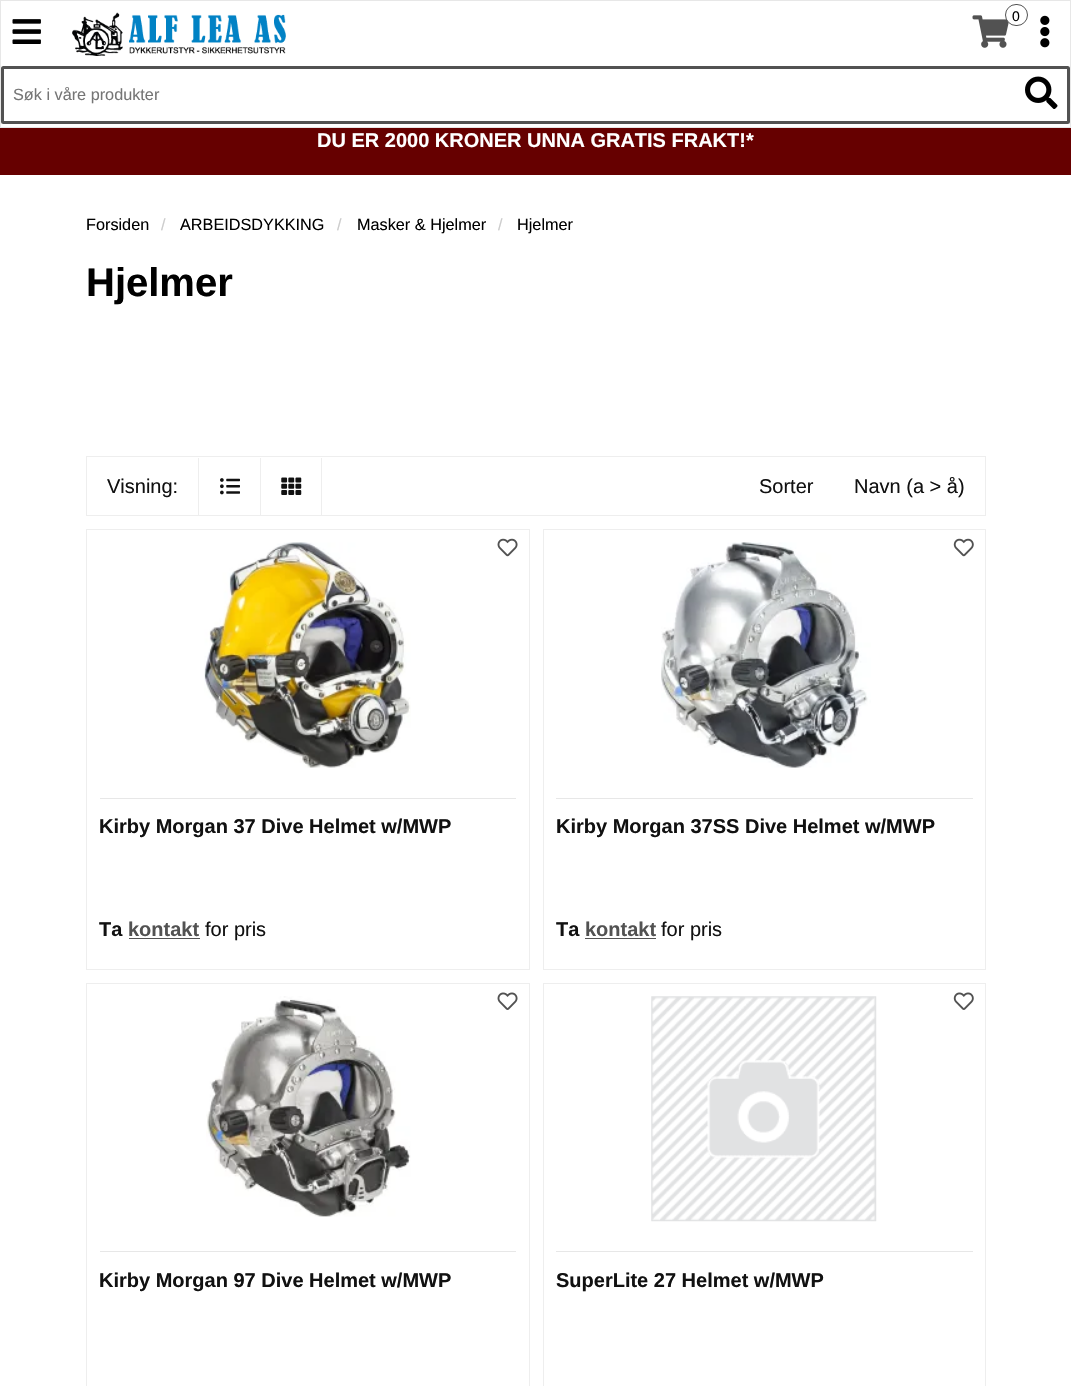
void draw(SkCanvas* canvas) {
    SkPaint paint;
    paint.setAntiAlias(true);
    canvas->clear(0xFFFFFFFF);
    paint.setStyle(SkPaint::kStroke_Style);
    paint.setStrokeWidth(1);
    paint.setColor(0xFFE7E7E7);
    canvas->drawRect(SkRect::MakeXYWH(0.5f, 0.5f, 1070, 127), paint);
    canvas->drawImageRect(SkImages::DeferredFromEncodedData(SkData::MakeFromFileName("img1.png")), SkRect::MakeXYWH(12, 19, 29, 25), SkSamplingOptions());
    canvas->drawImageRect(SkImages::DeferredFromEncodedData(SkData::MakeFromFileName("img2.png")), SkRect::MakeXYWH(72, 12, 214, 44), SkSamplingOptions());
    canvas->drawImageRect(SkImages::DeferredFromEncodedData(SkData::MakeFromFileName("img3.png")), SkRect::MakeXYWH(972, 15, 37, 33), SkSamplingOptions());
    paint.setStyle(SkPaint::kFill_Style);
    paint.setColor(0xFFFFFFFF);
    canvas->drawRoundRect(SkRect::MakeXYWH(1005.5f, 4.5f, 22, 21), 10.5f, 10.5f, paint);
    paint.setStyle(SkPaint::kStroke_Style);
    paint.setColor(0xFF525252);
    canvas->drawRoundRect(SkRect::MakeXYWH(1005.5f, 4.5f, 22, 21), 10.5f, 10.5f, paint);
    SkFont font1(fontMgr->matchFamilyStyle("Liberation Sans", SkFontStyle::Normal()), 14);
    font1.setSubpixel(true);
    paint.setStyle(SkPaint::kFill_Style);
    paint.setColor(0xFF000000);
    canvas->drawString("0", 1012, 21, font1, paint);
    canvas->drawImageRect(SkImages::DeferredFromEncodedData(SkData::MakeFromFileName("img4.png")), SkRect::MakeXYWH(1040, 15, 10, 33), SkSamplingOptions());
    paint.setStyle(SkPaint::kStroke_Style);
    paint.setStrokeWidth(3);
    paint.setColor(0xFF525252);
    canvas->drawRoundRect(SkRect::MakeXYWH(2.5f, 67.5f, 1066, 55), 1, 1, paint);
    SkFont font2(fontMgr->matchFamilyStyle("Liberation Sans", SkFontStyle::Normal()), 16.25f);
    font2.setSubpixel(true);
    paint.setStyle(SkPaint::kFill_Style);
    paint.setColor(0xFF757575);
    canvas->drawString("Søk i våre produkter", 13, 100, font2, paint);
    canvas->drawImageRect(SkImages::DeferredFromEncodedData(SkData::MakeFromFileName("img5.png")), SkRect::MakeXYWH(1025, 76, 33, 33), SkSamplingOptions());
    paint.setColor(0xFF660000);
    canvas->drawRect(SkRect::MakeXYWH(0, 128, 1071, 47), paint);
    SkFont font3(fontMgr->matchFamilyStyle("Liberation Sans", SkFontStyle::Bold()), 20);
    font3.setSubpixel(true);
    paint.setColor(0xFFFFFFFF);
    canvas->drawString("DU ER 2000 KRONER UNNA GRATIS FRAKT!*", 317, 147, font3, paint);
    paint.setColor(0xFF000000);
    canvas->drawString("Forsiden", 86, 230, font2, paint);
    paint.setColor(0xFFCCCCCC);
    canvas->drawString("/", 161, 230, font2, paint);
    paint.setColor(0xFF000000);
    canvas->drawString("ARBEIDSDYKKING", 180, 230, font2, paint);
    paint.setColor(0xFFCCCCCC);
    canvas->drawString("/", 337, 230, font2, paint);
    paint.setColor(0xFF000000);
    canvas->drawString("Masker & Hjelmer", 357, 230, font2, paint);
    paint.setColor(0xFFCCCCCC);
    canvas->drawString("/", 498, 230, font2, paint);
    paint.setColor(0xFF000000);
    canvas->drawString("Hjelmer", 517, 230, font2, paint);
    SkFont font4(fontMgr->matchFamilyStyle("Liberation Sans", SkFontStyle::Bold()), 40);
    font4.setSubpixel(true);
    canvas->drawString("Hjelmer", 86, 296, font4, paint);
    paint.setStyle(SkPaint::kStroke_Style);
    paint.setStrokeWidth(1);
    paint.setColor(0xFFEEEEEE);
    canvas->drawRect(SkRect::MakeXYWH(86.5f, 456.5f, 899, 59), paint);
    SkFont font5(fontMgr->matchFamilyStyle("Liberation Sans", SkFontStyle::Normal()), 20);
    font5.setSubpixel(true);
    paint.setStyle(SkPaint::kFill_Style);
    paint.setColor(0xFF111111);
    canvas->drawString("Visning:", 107, 493, font5, paint);
    paint.setColor(0xFFEEEEEE);
    canvas->drawRect(SkRect::MakeXYWH(198, 458, 1, 57), paint);
    canvas->drawImageRect(SkImages::DeferredFromEncodedData(SkData::MakeFromFileName("img6.png")), SkRect::MakeXYWH(220, 478, 20, 17), SkSamplingOptions());
    canvas->drawRect(SkRect::MakeXYWH(321, 458, 1, 57), paint);
    canvas->drawRect(SkRect::MakeXYWH(260, 458, 1, 57), paint);
    canvas->drawImageRect(SkImages::DeferredFromEncodedData(SkData::MakeFromFileName("img7.png")), SkRect::MakeXYWH(281, 477, 21, 18), SkSamplingOptions());
    paint.setColor(0xFF111111);
    canvas->drawString("Sorter", 759, 493, font5, paint);
    canvas->drawString("Navn (a > å)", 854, 493, font5, paint);
    paint.setStyle(SkPaint::kStroke_Style);
    paint.setColor(0xFFEEEEEE);
    canvas->drawRect(SkRect::MakeXYWH(86.5f, 529.5f, 443, 440), paint);
    canvas->drawImageRect(SkImages::DeferredFromEncodedData(SkData::MakeFromFileName("img8.png")), SkRect::MakeXYWH(204, 542, 207, 226), SkSamplingOptions());
    paint.setStyle(SkPaint::kFill_Style);
    paint.setColor(0xFFE7E7E7);
    canvas->drawRect(SkRect::MakeXYWH(100, 798, 416, 1), paint);
    paint.setColor(0xFF111111);
    canvas->drawString("Kirby Morgan 37 Dive Helmet w/MWP", 99, 833, font3, paint);
    canvas->drawImageRect(SkImages::DeferredFromEncodedData(SkData::MakeFromFileName("img9.png")), SkRect::MakeXYWH(497, 538, 21, 19), SkSamplingOptions());
    canvas->drawString("Ta", 99, 936, font3, paint);
    paint.setColor(0xFF525252);
    canvas->drawString("kontakt", 128, 936, font3, paint);
    canvas->drawRect(SkRect::MakeXYWH(129, 938, 71, 1), paint);
    paint.setColor(0xFF111111);
    canvas->drawString("for pris", 205, 936, font5, paint);
    paint.setStyle(SkPaint::kStroke_Style);
    paint.setColor(0xFFEEEEEE);
    canvas->drawRect(SkRect::MakeXYWH(543.5f, 529.5f, 442, 440), paint);
    canvas->drawImageRect(SkImages::DeferredFromEncodedData(SkData::MakeFromFileName("img10.png")), SkRect::MakeXYWH(661, 542, 210, 226), SkSamplingOptions());
    paint.setStyle(SkPaint::kFill_Style);
    paint.setColor(0xFFE7E7E7);
    canvas->drawRect(SkRect::MakeXYWH(556, 798, 417, 1), paint);
    paint.setColor(0xFF111111);
    canvas->drawString("Kirby Morgan 37SS Dive Helmet w/MWP", 556, 833, font3, paint);
    canvas->drawImageRect(SkImages::DeferredFromEncodedData(SkData::MakeFromFileName("img11.png")), SkRect::MakeXYWH(953, 538, 21, 19), SkSamplingOptions());
    canvas->drawString("Ta", 556, 936, font3, paint);
    paint.setColor(0xFF525252);
    canvas->drawString("kontakt", 585, 936, font3, paint);
    canvas->drawRect(SkRect::MakeXYWH(585, 938, 71, 1), paint);
    paint.setColor(0xFF111111);
    canvas->drawString("for pris", 661, 936, font5, paint);
    paint.setStyle(SkPaint::kStroke_Style);
    paint.setColor(0xFFEEEEEE);
    canvas->drawRect(SkRect::MakeXYWH(86.5f, 983.5f, 443, 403), paint);
    canvas->drawImageRect(SkImages::DeferredFromEncodedData(SkData::MakeFromFileName("img12.png")), SkRect::MakeXYWH(206, 996, 205, 221), SkSamplingOptions());
    canvas->drawImageRect(SkImages::DeferredFromEncodedData(SkData::MakeFromFileName("img13.png")), SkRect::MakeXYWH(497, 992, 21, 18), SkSamplingOptions());
    paint.setStyle(SkPaint::kFill_Style);
    paint.setColor(0xFFE7E7E7);
    canvas->drawRect(SkRect::MakeXYWH(100, 1251, 416, 1), paint);
    paint.setColor(0xFF111111);
    canvas->drawString("Kirby Morgan 97 Dive Helmet w/MWP", 99, 1287, font3, paint);
    paint.setStyle(SkPaint::kStroke_Style);
    paint.setColor(0xFFEEEEEE);
    canvas->drawRect(SkRect::MakeXYWH(543.5f, 983.5f, 442, 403), paint);
    canvas->drawImageRect(SkImages::DeferredFromEncodedData(SkData::MakeFromFileName("img14.png")), SkRect::MakeXYWH(651, 996, 226, 226), SkSamplingOptions());
    canvas->drawImageRect(SkImages::DeferredFromEncodedData(SkData::MakeFromFileName("img15.png")), SkRect::MakeXYWH(953, 992, 21, 18), SkSamplingOptions());
    paint.setStyle(SkPaint::kFill_Style);
    paint.setColor(0xFFE7E7E7);
    canvas->drawRect(SkRect::MakeXYWH(556, 1251, 417, 1), paint);
    paint.setColor(0xFF111111);
    canvas->drawString("SuperLite 27 Helmet w/MWP", 556, 1287, font3, paint);
}
